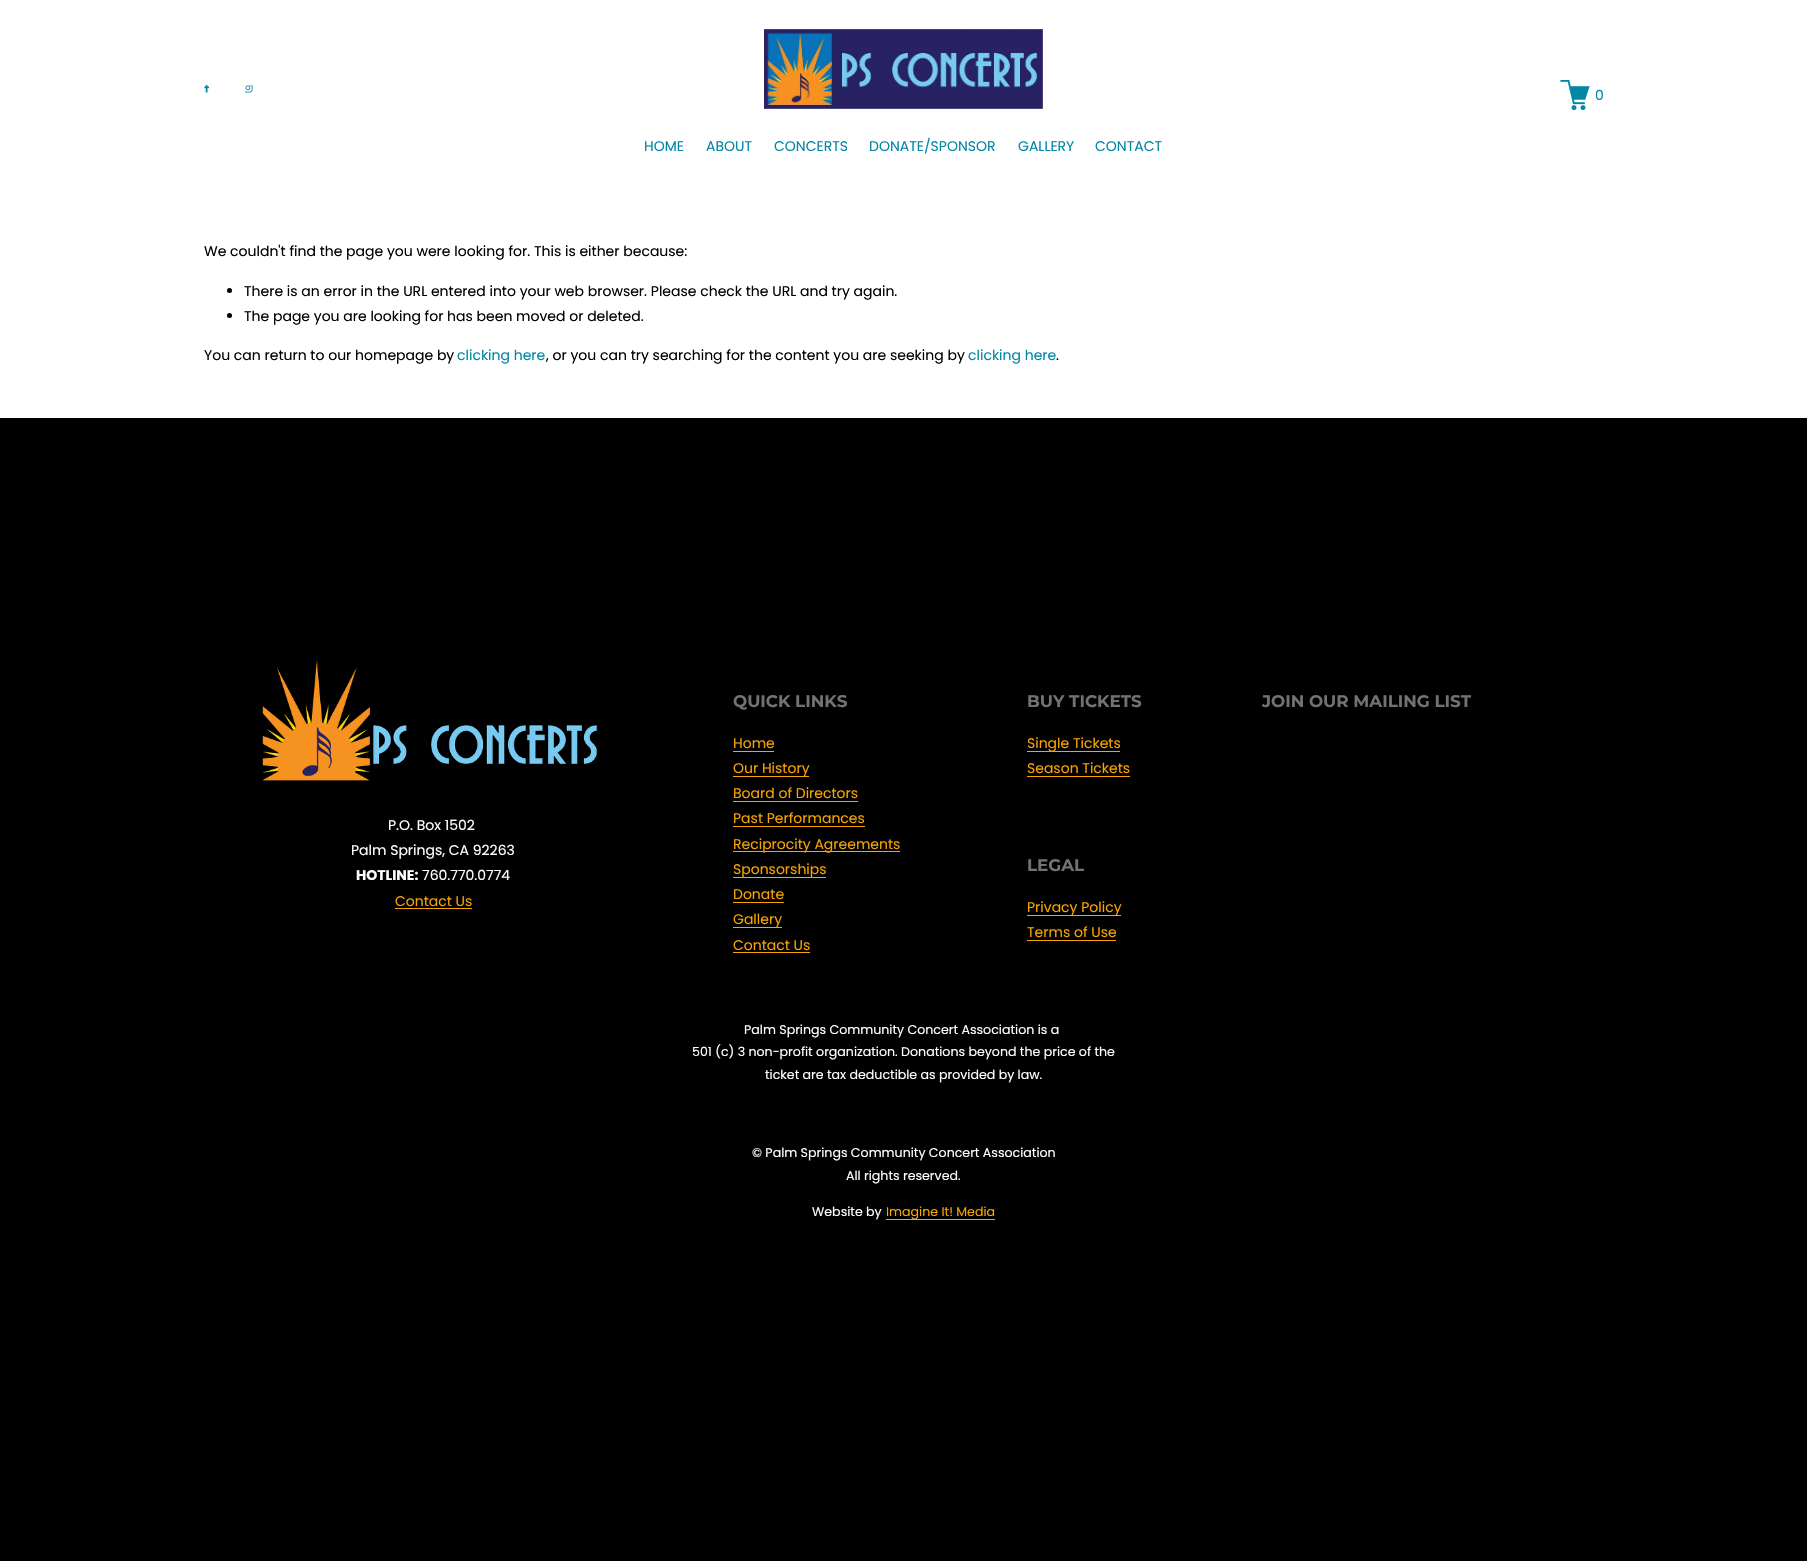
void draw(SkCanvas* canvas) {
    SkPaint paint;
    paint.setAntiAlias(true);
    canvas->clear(0xFFFFFFFF);
    canvas->drawImageRect(SkImages::DeferredFromEncodedData(SkData::MakeFromFileName("img1.png")), SkRect::MakeXYWH(204, 85, 6, 8), SkSamplingOptions());
    canvas->drawImageRect(SkImages::DeferredFromEncodedData(SkData::MakeFromFileName("img2.png")), SkRect::MakeXYWH(245, 85, 8, 8), SkSamplingOptions());
    canvas->drawImageRect(SkImages::DeferredFromEncodedData(SkData::MakeFromFileName("img3.png")), SkRect::MakeXYWH(1560, 80, 30, 30), SkSamplingOptions());
    SkFont font1(fontMgr->matchFamilyStyle("Poppins", SkFontStyle::Normal()), 14);
    font1.setSubpixel(true);
    paint.setColor(0xFF0087A6);
    canvas->drawString("0", 1595, 100, font1, paint);
    canvas->drawImageRect(SkImages::DeferredFromEncodedData(SkData::MakeFromFileName("img4.png")), SkRect::MakeXYWH(764, 29, 279, 80), SkSamplingOptions());
    canvas->drawString("HOME", 644, 151, font1, paint);
    canvas->drawString("ABOUT", 706, 151, font1, paint);
    canvas->drawString("CONCERTS", 774, 151, font1, paint);
    canvas->drawString("DONATE/SPONSOR", 869, 151, font1, paint);
    canvas->drawString("GALLERY", 1018, 151, font1, paint);
    canvas->drawString("CONTACT", 1095, 151, font1, paint);
    paint.setColor(0xFF000000);
    canvas->drawString("We couldn't find the page you were looking for. This is either because:", 204, 256, font1, paint);
    canvas->drawCircle(229.5f, 290.5f, 2.5f, paint);
    canvas->drawString("There is an error in the URL entered into your web browser. Please check the URL and try again.", 244, 296, font1, paint);
    canvas->drawCircle(229.5f, 315.5f, 2.5f, paint);
    canvas->drawString("The page you are looking for has been moved or deleted.", 244, 321, font1, paint);
    canvas->drawString("You can return to our homepage by", 204, 360, font1, paint);
    paint.setColor(0xFF0087A6);
    canvas->drawString("clicking here", 457, 360, font1, paint);
    paint.setColor(0xFF000000);
    canvas->drawString(", or you can try searching for the content you are seeking by", 546, 360, font1, paint);
    paint.setColor(0xFF0087A6);
    canvas->drawString("clicking here", 968, 360, font1, paint);
    paint.setColor(0xFF000000);
    canvas->drawString(".", 1056, 360, font1, paint);
    canvas->drawRect(SkRect::MakeXYWH(0, 418, 1807, 1143), paint);
    canvas->drawImageRect(SkImages::DeferredFromEncodedData(SkData::MakeFromFileName("img5.png")), SkRect::MakeXYWH(262, 660, 336, 121), SkSamplingOptions());
    SkFont font2(fontMgr->matchFamilyStyle("Montserrat", SkFontStyle(100, SkFontStyle::kNormal_Width, SkFontStyle::kUpright_Slant)), 16.75f);
    font2.setSubpixel(true);
    paint.setColor(0xFF727272);
    canvas->drawString("QUICK LINKS", 733, 707, font2, paint);
    canvas->drawString("BUY TICKETS", 1027, 707, font2, paint);
    canvas->drawString("JOIN OUR MAILING LIST", 1262, 707, font2, paint);
    paint.setColor(0xFFFFFFFF);
    canvas->drawString("P.O. Box 1502", 388, 830, font1, paint);
    canvas->drawString("Palm Springs, CA 92263", 351, 855, font1, paint);
    SkFont font3(fontMgr->matchFamilyStyle("Poppins", SkFontStyle::Bold()), 14);
    font3.setSubpixel(true);
    canvas->drawString("HOTLINE:", 356, 880, font3, paint);
    canvas->drawString("760.770.0774", 422, 880, font1, paint);
    paint.setColor(0xFFF8A402);
    canvas->drawString("Contact Us", 395, 906, font1, paint);
    canvas->drawRect(SkRect::MakeXYWH(395, 908, 77, 1), paint);
    canvas->drawString("Home", 733, 748, font1, paint);
    canvas->drawRect(SkRect::MakeXYWH(733, 751, 41, 1), paint);
    canvas->drawRect(SkRect::MakeXYWH(733, 776, 76, 1), paint);
    canvas->drawString("Our History", 733, 773, font1, paint);
    canvas->drawString("Board of Directors", 733, 798, font1, paint);
    canvas->drawRect(SkRect::MakeXYWH(733, 801, 125, 1), paint);
    canvas->drawString("Past Performances", 733, 823, font1, paint);
    canvas->drawRect(SkRect::MakeXYWH(733, 826, 132, 1), paint);
    canvas->drawRect(SkRect::MakeXYWH(733, 851, 167, 1), paint);
    canvas->drawString("Reciprocity Agreements", 733, 849, font1, paint);
    canvas->drawRect(SkRect::MakeXYWH(733, 877, 93, 1), paint);
    canvas->drawString("Sponsorships", 733, 874, font1, paint);
    canvas->drawString("Donate", 733, 899, font1, paint);
    canvas->drawRect(SkRect::MakeXYWH(733, 902, 51, 1), paint);
    canvas->drawRect(SkRect::MakeXYWH(733, 927, 49, 1), paint);
    canvas->drawString("Gallery", 733, 924, font1, paint);
    canvas->drawString("Contact Us", 733, 950, font1, paint);
    canvas->drawRect(SkRect::MakeXYWH(733, 952, 77, 1), paint);
    canvas->drawRect(SkRect::MakeXYWH(1027, 751, 93, 1), paint);
    canvas->drawString("Single Tickets", 1027, 748, font1, paint);
    canvas->drawString("Season Tickets", 1027, 773, font1, paint);
    canvas->drawRect(SkRect::MakeXYWH(1027, 776, 103, 1), paint);
    paint.setColor(0xFF727272);
    canvas->drawString("LEGAL", 1027, 871, font2, paint);
    paint.setColor(0xFFF8A402);
    canvas->drawRect(SkRect::MakeXYWH(1027, 915, 94, 1), paint);
    canvas->drawString("Privacy Policy", 1027, 912, font1, paint);
    canvas->drawString("Terms of Use", 1027, 937, font1, paint);
    canvas->drawRect(SkRect::MakeXYWH(1027, 940, 89, 1), paint);
    SkFont font4(fontMgr->matchFamilyStyle("Poppins", SkFontStyle::Normal()), 12.6f);
    font4.setSubpixel(true);
    paint.setColor(0xFFFFFFFF);
    canvas->drawString("Palm Springs Community Concert Association is a", 744, 1034, font4, paint);
    canvas->drawString("501 (c) 3 non-profit organization. Donations beyond the price of the", 692, 1056, font4, paint);
    canvas->drawString("ticket are tax deductible as provided by law.", 765, 1079, font4, paint);
    canvas->drawString("© Palm Springs Community Concert Association", 752, 1157, font4, paint);
    canvas->drawString("All rights reserved.", 846, 1180, font4, paint);
    canvas->drawString("Website by", 812, 1216, font4, paint);
    paint.setColor(0xFFF8A402);
    canvas->drawRect(SkRect::MakeXYWH(886, 1219, 109, 1), paint);
    canvas->drawString("Imagine It! Media", 886, 1216, font4, paint);
}
